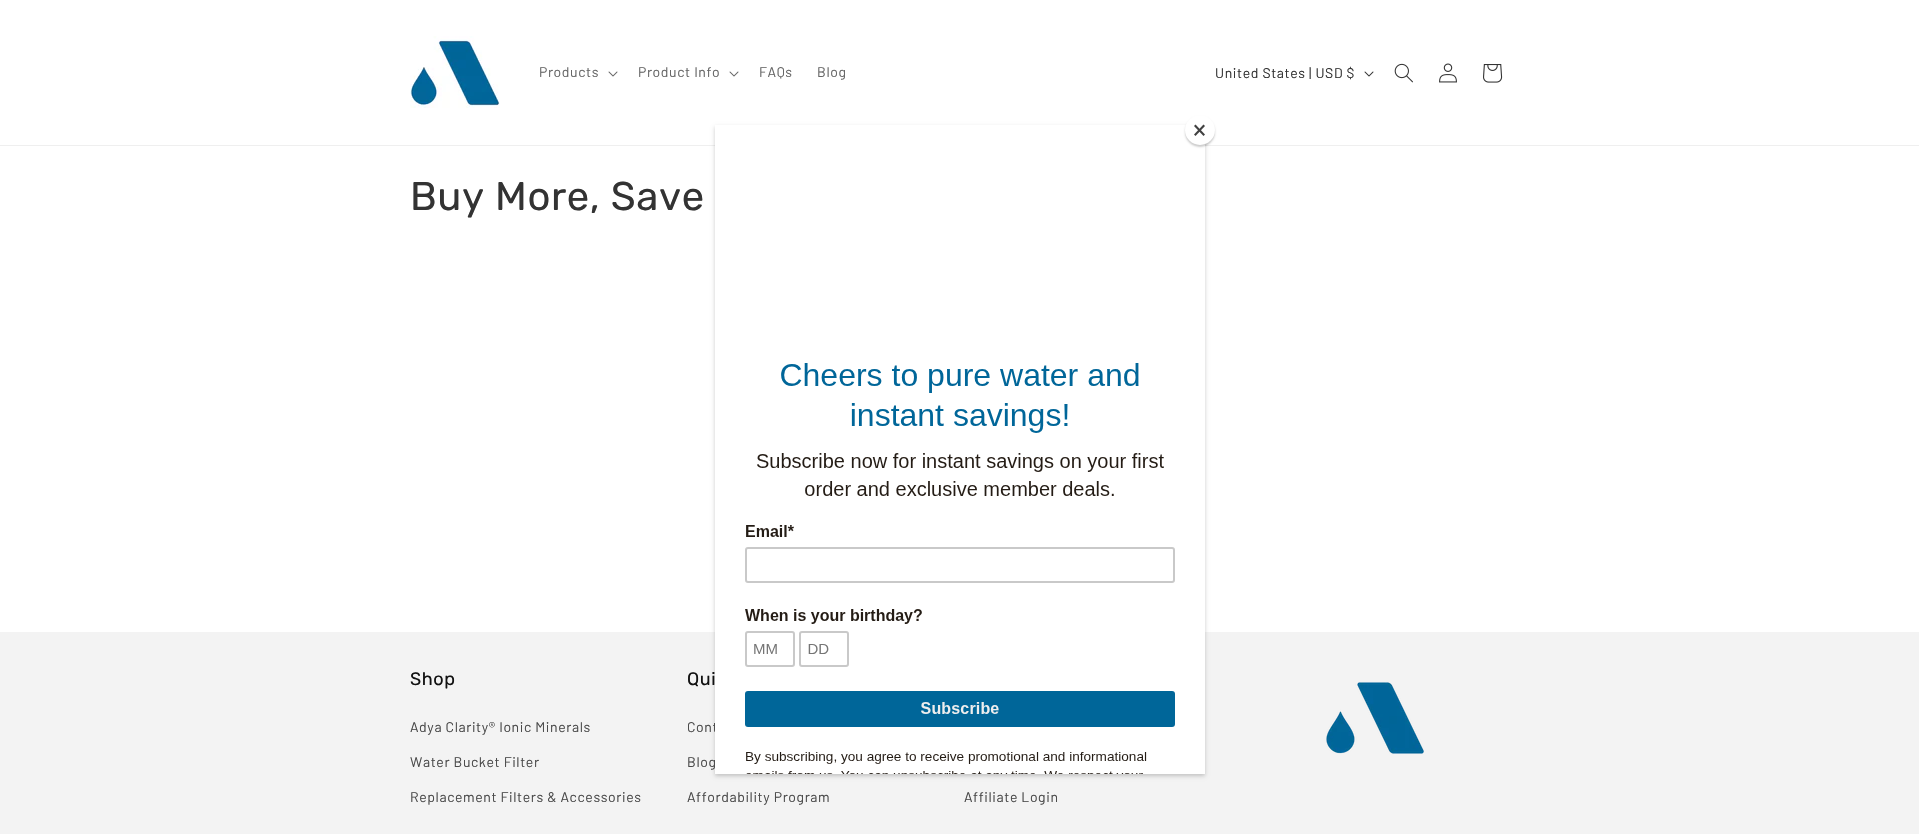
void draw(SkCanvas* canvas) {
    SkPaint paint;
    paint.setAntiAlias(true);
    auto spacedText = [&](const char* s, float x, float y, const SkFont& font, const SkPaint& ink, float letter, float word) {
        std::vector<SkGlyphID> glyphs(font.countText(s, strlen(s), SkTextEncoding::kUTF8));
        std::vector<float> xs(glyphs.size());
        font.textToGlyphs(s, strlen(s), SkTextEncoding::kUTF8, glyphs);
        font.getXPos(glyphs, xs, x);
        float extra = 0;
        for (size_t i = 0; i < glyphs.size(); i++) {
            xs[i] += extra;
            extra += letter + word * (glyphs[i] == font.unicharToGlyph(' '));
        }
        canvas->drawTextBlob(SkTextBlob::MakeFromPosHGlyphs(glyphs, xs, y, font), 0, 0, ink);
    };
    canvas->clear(0xFFFFFFFF);
    paint.setColor(0xFFEFEFEF);
    canvas->drawRect(SkRect::MakeXYWH(0, 145, 1919, 1), paint);
    canvas->drawImageRect(SkImages::DeferredFromEncodedData(SkData::MakeFromFileName("img1.png")), SkRect::MakeXYWH(410, 36, 90, 72), SkSamplingOptions());
    SkFont font1(fontMgr->matchFamilyStyle("Barlow", SkFontStyle::Normal()), 14);
    font1.setSubpixel(true);
    paint.setColor(0xFF666666);
    spacedText("Products", 539, 77, font1, paint, 0.6f, 0);
    canvas->drawImageRect(SkImages::DeferredFromEncodedData(SkData::MakeFromFileName("img2.png")), SkRect::MakeXYWH(608, 71, 10, 6), SkSamplingOptions());
    spacedText("Product Info", 638, 77, font1, paint, 0.6f, 0);
    canvas->drawImageRect(SkImages::DeferredFromEncodedData(SkData::MakeFromFileName("img2.png")), SkRect::MakeXYWH(729, 71, 10, 6), SkSamplingOptions());
    spacedText("FAQs", 759, 77, font1, paint, 0.6f, 0);
    spacedText("Blog", 817, 77, font1, paint, 0.6f, 0);
    paint.setColor(0xFF333333);
    spacedText("United States | USD $", 1215, 78, font1, paint, 0.6f, 0);
    canvas->drawImageRect(SkImages::DeferredFromEncodedData(SkData::MakeFromFileName("img3.png")), SkRect::MakeXYWH(1364, 71, 10, 6), SkSamplingOptions());
    canvas->drawImageRect(SkImages::DeferredFromEncodedData(SkData::MakeFromFileName("img4.png")), SkRect::MakeXYWH(1394, 63, 19, 20), SkSamplingOptions());
    canvas->drawImageRect(SkImages::DeferredFromEncodedData(SkData::MakeFromFileName("img5.png")), SkRect::MakeXYWH(1439, 63, 18, 20), SkSamplingOptions());
    canvas->drawImageRect(SkImages::DeferredFromEncodedData(SkData::MakeFromFileName("img6.png")), SkRect::MakeXYWH(1483, 64, 20, 19), SkSamplingOptions());
    SkFont font2(fontMgr->matchFamilyStyle("Rubik", SkFontStyle::Normal()), 40);
    font2.setSubpixel(true);
    spacedText("Buy More, Save", 410, 210, font2, paint, 0.6f, 0);
    paint.setColor(0xFFF3F3F3);
    canvas->drawRect(SkRect::MakeXYWH(0, 632, 1919, 202), paint);
    canvas->save();
    canvas->clipPath(SkPathBuilder(SkPathFillType::kEvenOdd).moveTo(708, 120).lineTo(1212, 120).lineTo(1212, 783).lineTo(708, 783).close().moveTo(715, 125).lineTo(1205, 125).lineTo(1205, 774).lineTo(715, 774).close().detach(), true);
    paint.setColor(0x33000000);
    paint.setMaskFilter(SkMaskFilter::MakeBlur(kNormal_SkBlurStyle, 2));
    canvas->drawRect(SkRect::MakeXYWH(715, 127, 490, 649), paint);
    paint.setMaskFilter(nullptr);
    canvas->restore();
    paint.setColor(0xFF4A4A4A);
    spacedText("Cont", 687, 732, font1, paint, 0.6f, 0);
    canvas->drawImageRect(SkImages::DeferredFromEncodedData(SkData::MakeFromFileName("img7.png")), SkRect::MakeXYWH(715, 145, 490, 629), SkSamplingOptions());
    paint.setColor(0x33000000);
    paint.setMaskFilter(SkMaskFilter::MakeBlur(kNormal_SkBlurStyle, 1));
    canvas->drawRoundRect(SkRect::MakeXYWH(1185, 117, 30, 30), 15, 15, paint);
    paint.setMaskFilter(nullptr);
    paint.setColor(0xFFFFFFFF);
    canvas->drawCircle(1200, 130, 15, paint);
    paint.setColor(0xFF414141);
    canvas->drawPath(SkPathBuilder().moveTo(1203.5f, 124.5f).lineTo(1205, 126).lineTo(1195.5f, 136).lineTo(1194, 134.5f).close().detach(), paint);
    canvas->drawPath(SkPathBuilder().moveTo(1194, 126).lineTo(1195.5f, 124.5f).lineTo(1205, 134.5f).lineTo(1203.5f, 136).close().detach(), paint);
    SkFont font3(fontMgr->matchFamilyStyle("Rubik", SkFontStyle::Normal()), 18);
    font3.setSubpixel(true);
    paint.setColor(0xFF121212);
    spacedText("Shop", 410, 685, font3, paint, 0.6f, 0);
    paint.setColor(0xFF4A4A4A);
    spacedText("Adya Clarity® Ionic Minerals", 410, 732, font1, paint, 0.6f, 0);
    spacedText("Water Bucket Filter", 410, 767, font1, paint, 0.6f, 0);
    spacedText("Replacement Filters & Accessories", 410, 802, font1, paint, 0.6f, 0);
    paint.setColor(0xFF121212);
    spacedText("Qui", 687, 685, font3, paint, 0.6f, 0);
    paint.setColor(0xFF4A4A4A);
    spacedText("Blog", 687, 767, font1, paint, 0.6f, 0);
    spacedText("Affordability Program", 687, 802, font1, paint, 0.6f, 0);
    canvas->drawImageRect(SkImages::DeferredFromEncodedData(SkData::MakeFromFileName("img8.png")), SkRect::MakeXYWH(1326, 682, 98, 72), SkSamplingOptions());
    spacedText("Affiliate Login", 964, 802, font1, paint, 0.6f, 0);
}
